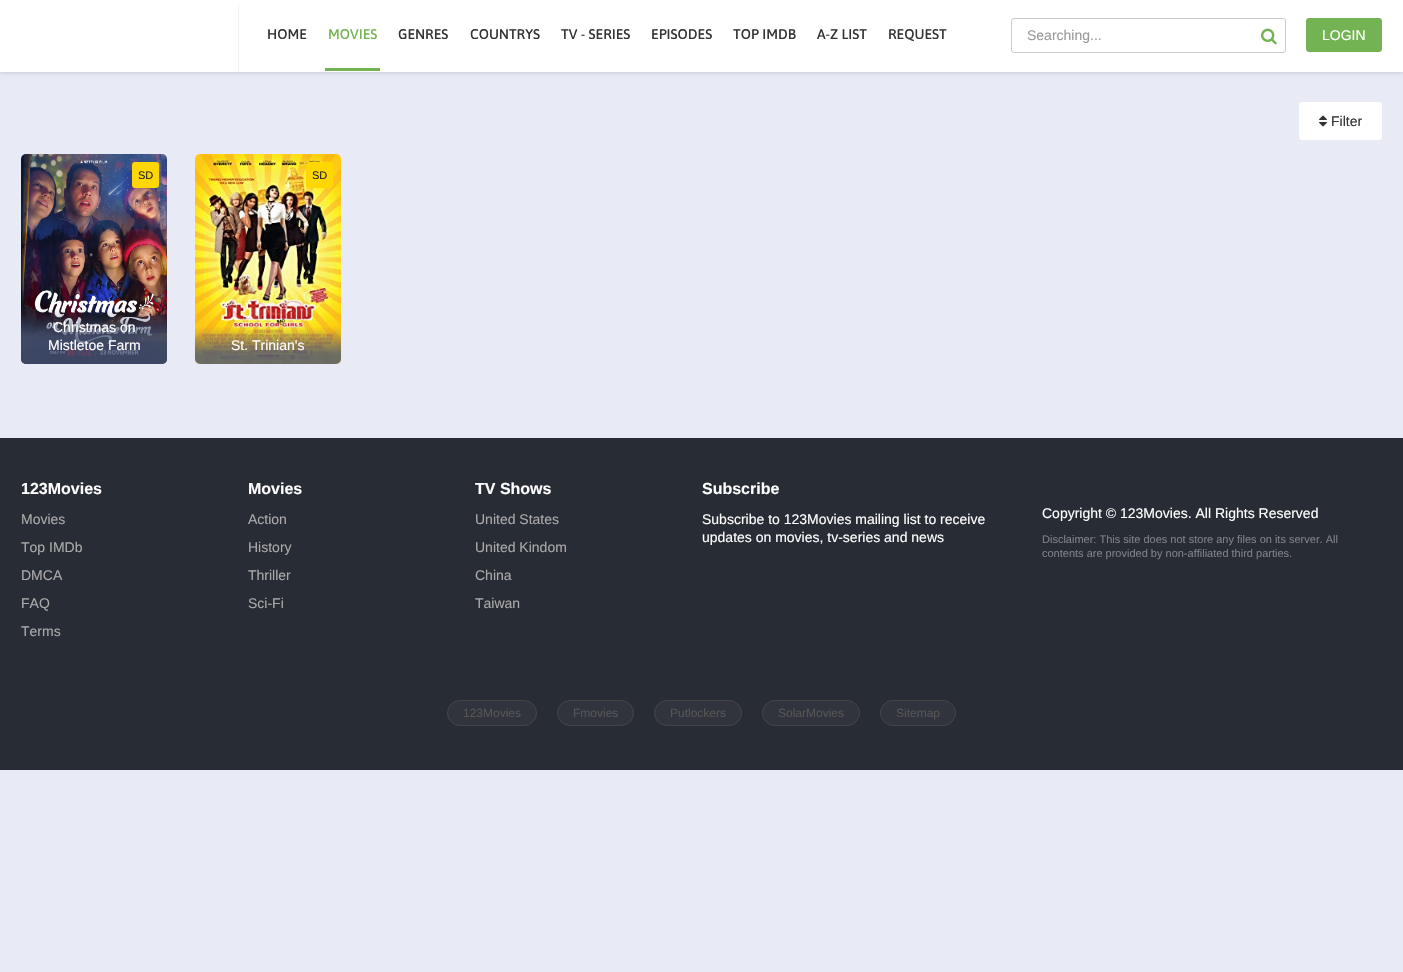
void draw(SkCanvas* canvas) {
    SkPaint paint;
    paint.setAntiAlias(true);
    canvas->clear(0xFFE8EBF5);
    paint.setColor(0x33000000);
    paint.setMaskFilter(SkMaskFilter::MakeBlur(kNormal_SkBlurStyle, 2.5f));
    canvas->drawRect(SkRect::MakeXYWH(0, 0, 1403, 72), paint);
    paint.setMaskFilter(nullptr);
    paint.setColor(0xFFFFFFFF);
    canvas->drawRect(SkRect::MakeXYWH(0, 0, 1403, 72), paint);
    paint.setColor(0xFFF2F2F2);
    canvas->drawRect(SkRect::MakeXYWH(238, 5, 1, 67), paint);
    SkFont font1(fontMgr->matchFamilyStyle("Asap", SkFontStyle(500, SkFontStyle::kNormal_Width, SkFontStyle::kUpright_Slant)), 14);
    font1.setSubpixel(true);
    paint.setColor(0xFF333333);
    canvas->drawString("HOME", 267, 39, font1, paint);
    paint.setColor(0xFF73B353);
    canvas->drawRect(SkRect::MakeXYWH(325, 68, 55, 3), paint);
    canvas->drawString("MOVIES", 328, 39, font1, paint);
    paint.setColor(0xFF333333);
    canvas->drawString("GENRES", 398, 39, font1, paint);
    canvas->drawString("COUNTRYS", 470, 39, font1, paint);
    canvas->drawString("TV - SERIES", 561, 39, font1, paint);
    canvas->drawString("EPISODES", 651, 39, font1, paint);
    canvas->drawString("TOP IMDB", 733, 39, font1, paint);
    canvas->drawString("A-Z LIST", 817, 39, font1, paint);
    canvas->drawString("REQUEST", 888, 39, font1, paint);
    paint.setStyle(SkPaint::kStroke_Style);
    paint.setStrokeWidth(1);
    paint.setColor(0xFFCCCCCC);
    canvas->drawRoundRect(SkRect::MakeXYWH(1011.5f, 18.5f, 274, 34), 2.5f, 2.5f, paint);
    SkFont font2(fontMgr->matchFamilyStyle("Liberation Sans", SkFontStyle::Normal()), 14);
    font2.setSubpixel(true);
    paint.setStyle(SkPaint::kFill_Style);
    paint.setColor(0xFF999999);
    canvas->drawString("Searching...", 1027, 40, font2, paint);
    canvas->drawImageRect(SkImages::DeferredFromEncodedData(SkData::MakeFromFileName("img1.png")), SkRect::MakeXYWH(1261, 28, 16, 17), SkSamplingOptions());
    paint.setColor(0xFF73B353);
    canvas->drawRoundRect(SkRect::MakeXYWH(1306.5f, 18.5f, 75, 33), 2.5f, 2.5f, paint);
    paint.setStyle(SkPaint::kStroke_Style);
    canvas->drawRoundRect(SkRect::MakeXYWH(1306.5f, 18.5f, 75, 33), 2.5f, 2.5f, paint);
    paint.setStyle(SkPaint::kFill_Style);
    paint.setColor(0xFFFFFFFF);
    canvas->drawString("LOGIN", 1322, 40, font2, paint);
    canvas->drawRoundRect(SkRect::MakeXYWH(1299, 102, 83, 38), 3, 3, paint);
    canvas->drawImageRect(SkImages::DeferredFromEncodedData(SkData::MakeFromFileName("img2.png")), SkRect::MakeXYWH(1319, 115, 8, 12), SkSamplingOptions());
    paint.setColor(0xFF333333);
    canvas->drawString("Filter", 1331, 126, font2, paint);
    canvas->drawImageRect(SkImages::DeferredFromEncodedData(SkData::MakeFromFileName("img3.png")), SkRect::MakeXYWH(21, 154, 146, 210), SkSamplingOptions());
    paint.setColor(0xFFFED700);
    canvas->drawRoundRect(SkRect::MakeXYWH(132, 162, 27, 26), 3, 3, paint);
    SkFont font3(fontMgr->matchFamilyStyle("Liberation Sans", SkFontStyle::Normal()), 11);
    font3.setSubpixel(true);
    paint.setColor(0xFF222222);
    canvas->drawString("SD", 138, 179, font3, paint);
    canvas->drawImageRect(SkImages::DeferredFromEncodedData(SkData::MakeFromFileName("img4.png")), SkRect::MakeXYWH(21, 309, 146, 55), SkSamplingOptions());
    paint.setColor(0xFFFFFFFF);
    canvas->drawString("Christmas on", 53, 332, font2, paint);
    canvas->drawString("Mistletoe Farm", 48, 350, font2, paint);
    canvas->drawImageRect(SkImages::DeferredFromEncodedData(SkData::MakeFromFileName("img5.png")), SkRect::MakeXYWH(195, 154, 146, 210), SkSamplingOptions());
    paint.setColor(0xFFFED700);
    canvas->drawRoundRect(SkRect::MakeXYWH(306, 162, 27, 26), 3, 3, paint);
    paint.setColor(0xFF222222);
    canvas->drawString("SD", 312, 179, font3, paint);
    canvas->drawImageRect(SkImages::DeferredFromEncodedData(SkData::MakeFromFileName("img6.png")), SkRect::MakeXYWH(195, 327, 146, 37), SkSamplingOptions());
    paint.setColor(0xFFFFFFFF);
    canvas->drawString("St. Trinian's", 231, 350, font2, paint);
    paint.setColor(0xFF282C35);
    canvas->drawRect(SkRect::MakeXYWH(0, 438, 1403, 332), paint);
    SkFont font4(fontMgr->matchFamilyStyle("Liberation Sans", SkFontStyle::Bold()), 16);
    font4.setSubpixel(true);
    paint.setColor(0xFFFFFFFF);
    canvas->drawString("123Movies", 21, 494, font4, paint);
    paint.setColor(0xFFAAAAAA);
    canvas->drawString("Movies", 21, 524, font2, paint);
    canvas->drawString("Top IMDb", 21, 552, font2, paint);
    canvas->drawString("DMCA", 21, 580, font2, paint);
    canvas->drawString("FAQ", 21, 608, font2, paint);
    canvas->drawString("Terms", 21, 636, font2, paint);
    paint.setColor(0xFFFFFFFF);
    canvas->drawString("Movies", 248, 494, font4, paint);
    paint.setColor(0xFFAAAAAA);
    canvas->drawString("Action", 248, 524, font2, paint);
    canvas->drawString("History", 248, 552, font2, paint);
    canvas->drawString("Thriller", 248, 580, font2, paint);
    canvas->drawString("Sci-Fi", 248, 608, font2, paint);
    paint.setColor(0xFFFFFFFF);
    canvas->drawString("TV Shows", 475, 494, font4, paint);
    paint.setColor(0xFFAAAAAA);
    canvas->drawString("United States", 475, 524, font2, paint);
    canvas->drawString("United Kindom", 475, 552, font2, paint);
    canvas->drawString("China", 475, 580, font2, paint);
    canvas->drawString("Taiwan", 475, 608, font2, paint);
    paint.setColor(0xFFFFFFFF);
    canvas->drawString("Subscribe", 702, 494, font4, paint);
    canvas->drawString("Subscribe to 123Movies mailing list to receive", 702, 524, font2, paint);
    canvas->drawString("updates on movies, tv-series and news", 702, 542, font2, paint);
    canvas->drawString("Copyright © 123Movies. All Rights Reserved", 1042, 518, font2, paint);
    paint.setColor(0xFF7E8086);
    canvas->drawString("Disclaimer: This site does not store any files on its server. All", 1042, 543, font3, paint);
    canvas->drawString("contents are provided by non-affiliated third parties.", 1042, 557, font3, paint);
    paint.setColor(0xFF31343D);
    canvas->drawRoundRect(SkRect::MakeXYWH(447.5f, 700.5f, 89, 25), 12.5f, 12.5f, paint);
    paint.setStyle(SkPaint::kStroke_Style);
    paint.setColor(0xFF444444);
    canvas->drawRoundRect(SkRect::MakeXYWH(447.5f, 700.5f, 89, 25), 12.5f, 12.5f, paint);
    SkFont font5(fontMgr->matchFamilyStyle("Liberation Sans", SkFontStyle::Normal()), 12);
    font5.setSubpixel(true);
    paint.setStyle(SkPaint::kFill_Style);
    paint.setColor(0xFF555555);
    canvas->drawString("123Movies", 463, 717, font5, paint);
    paint.setColor(0xFF31343D);
    canvas->drawRoundRect(SkRect::MakeXYWH(557.5f, 700.5f, 76, 25), 12.5f, 12.5f, paint);
    paint.setStyle(SkPaint::kStroke_Style);
    paint.setColor(0xFF444444);
    canvas->drawRoundRect(SkRect::MakeXYWH(557.5f, 700.5f, 76, 25), 12.5f, 12.5f, paint);
    paint.setStyle(SkPaint::kFill_Style);
    paint.setColor(0xFF555555);
    canvas->drawString("Fmovies", 573, 717, font5, paint);
    paint.setColor(0xFF31343D);
    canvas->drawRoundRect(SkRect::MakeXYWH(654.5f, 700.5f, 87, 25), 12.5f, 12.5f, paint);
    paint.setStyle(SkPaint::kStroke_Style);
    paint.setColor(0xFF444444);
    canvas->drawRoundRect(SkRect::MakeXYWH(654.5f, 700.5f, 87, 25), 12.5f, 12.5f, paint);
    paint.setStyle(SkPaint::kFill_Style);
    paint.setColor(0xFF555555);
    canvas->drawString("Putlockers", 670, 717, font5, paint);
    paint.setColor(0xFF31343D);
    canvas->drawRoundRect(SkRect::MakeXYWH(762.5f, 700.5f, 97, 25), 12.5f, 12.5f, paint);
    paint.setStyle(SkPaint::kStroke_Style);
    paint.setColor(0xFF444444);
    canvas->drawRoundRect(SkRect::MakeXYWH(762.5f, 700.5f, 97, 25), 12.5f, 12.5f, paint);
    paint.setStyle(SkPaint::kFill_Style);
    paint.setColor(0xFF555555);
    canvas->drawString("SolarMovies", 778, 717, font5, paint);
    paint.setColor(0xFF31343D);
    canvas->drawRoundRect(SkRect::MakeXYWH(880.5f, 700.5f, 75, 25), 12.5f, 12.5f, paint);
    paint.setStyle(SkPaint::kStroke_Style);
    paint.setColor(0xFF444444);
    canvas->drawRoundRect(SkRect::MakeXYWH(880.5f, 700.5f, 75, 25), 12.5f, 12.5f, paint);
    paint.setStyle(SkPaint::kFill_Style);
    paint.setColor(0xFF555555);
    canvas->drawString("Sitemap", 896, 717, font5, paint);
}
